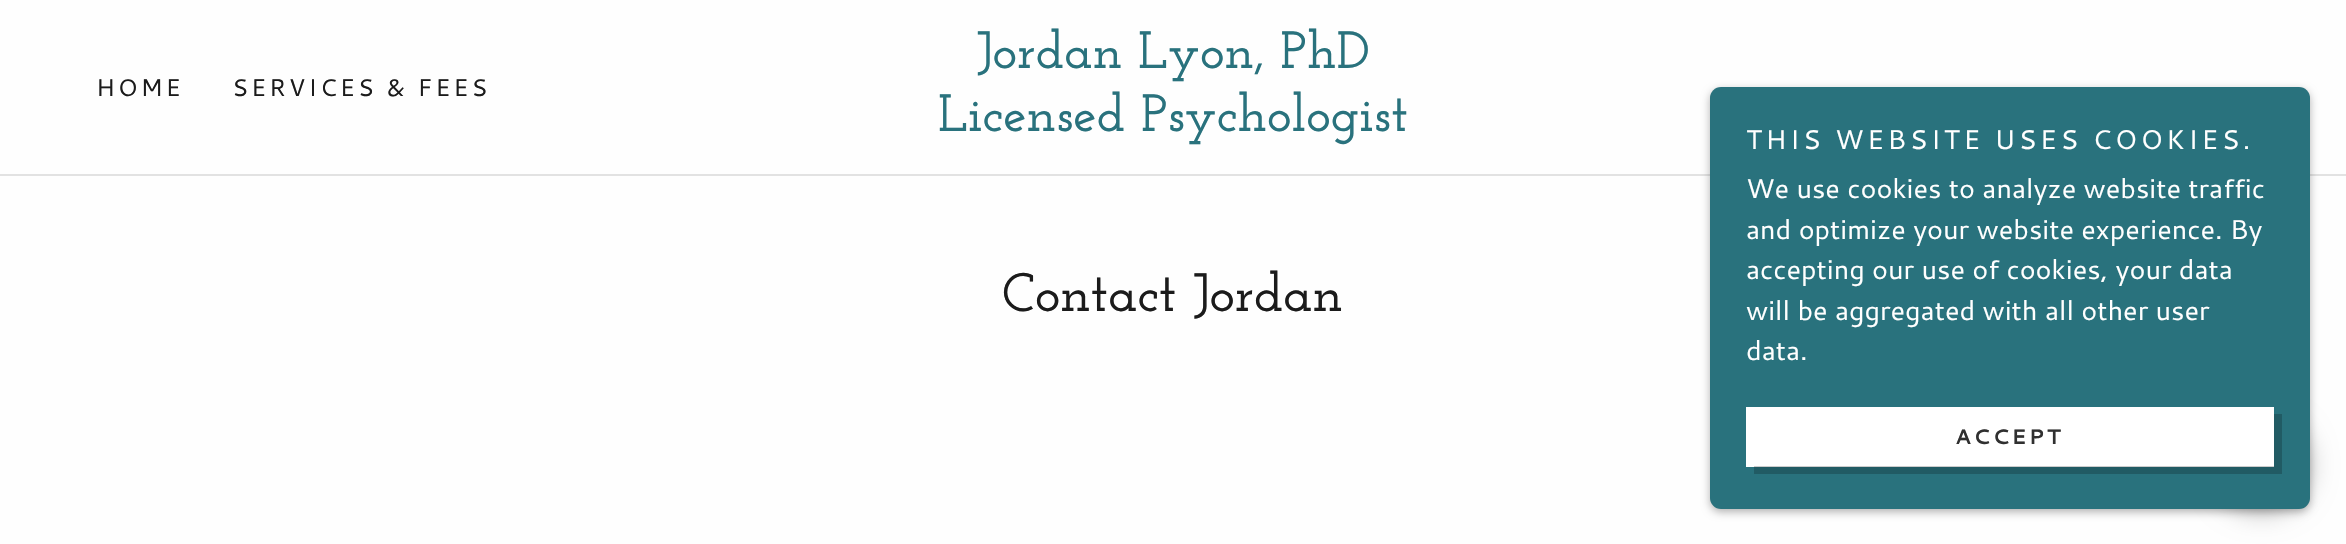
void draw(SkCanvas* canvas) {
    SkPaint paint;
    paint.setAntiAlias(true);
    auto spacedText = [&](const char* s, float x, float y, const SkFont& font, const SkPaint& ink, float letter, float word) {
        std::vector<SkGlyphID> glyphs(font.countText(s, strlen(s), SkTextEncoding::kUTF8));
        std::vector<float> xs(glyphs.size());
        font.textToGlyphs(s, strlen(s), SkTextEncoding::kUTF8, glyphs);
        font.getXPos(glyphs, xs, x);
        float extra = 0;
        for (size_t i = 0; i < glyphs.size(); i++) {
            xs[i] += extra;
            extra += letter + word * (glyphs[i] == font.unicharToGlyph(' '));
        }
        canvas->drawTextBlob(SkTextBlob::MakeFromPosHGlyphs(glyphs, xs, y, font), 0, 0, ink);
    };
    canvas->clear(0xFFFEFEFE);
    SkFont font1(fontMgr->matchFamilyStyle("Cantarell", SkFontStyle::Normal()), 24);
    font1.setSubpixel(true);
    paint.setColor(0xFF1B1B1B);
    spacedText("HOME", 96, 96, font1, paint, 3, 0);
    spacedText("SERVICES & FEES", 232, 96, font1, paint, 3, 0);
    SkFont font2(fontMgr->matchFamilyStyle("Josefin Slab", SkFontStyle(100, SkFontStyle::kNormal_Width, SkFontStyle::kUpright_Slant)), 52.5f);
    font2.setSubpixel(true);
    paint.setColor(0xFF29727D);
    canvas->drawString("Jordan Lyon, PhD", 976, 68, font2, paint);
    canvas->drawString("Licensed Psychologist", 938, 131, font2, paint);
    paint.setColor(0xFFE2E2E2);
    canvas->drawRect(SkRect::MakeXYWH(0, 174, 2346, 2), paint);
    SkFont font3(fontMgr->matchFamilyStyle("Josefin Slab", SkFontStyle(100, SkFontStyle::kNormal_Width, SkFontStyle::kUpright_Slant)), 54);
    font3.setSubpixel(true);
    paint.setColor(0xFF1B1B1B);
    canvas->drawString("Contact Jordan", 1002, 311, font3, paint);
    paint.setColor(0x4D000000);
    paint.setMaskFilter(SkMaskFilter::MakeBlur(kNormal_SkBlurStyle, 4.5f));
    canvas->drawRoundRect(SkRect::MakeXYWH(1710, 90, 600, 422), 11, 11, paint);
    paint.setMaskFilter(nullptr);
    paint.setColor(0x40000000);
    paint.setMaskFilter(SkMaskFilter::MakeBlur(kNormal_SkBlurStyle, 13.5f));
    canvas->drawRoundRect(SkRect::MakeXYWH(2213, 416, 97, 97), 48.5f, 48.5f, paint);
    paint.setMaskFilter(nullptr);
    paint.setColor(0xFF29727D);
    canvas->drawRoundRect(SkRect::MakeXYWH(1710, 87, 600, 422), 11, 11, paint);
    SkFont font4(fontMgr->matchFamilyStyle("Cantarell", SkFontStyle::Normal()), 27);
    font4.setSubpixel(true);
    paint.setColor(0xFFFFFFFF);
    spacedText("THIS WEBSITE USES COOKIES.", 1746, 149, font4, paint, 3.4f, 0);
    canvas->drawString("We use cookies to analyze website traffic", 1746, 198, font4, paint);
    canvas->drawString("and optimize your website experience. By", 1746, 239, font4, paint);
    canvas->drawString("accepting our use of cookies, your data", 1746, 279, font4, paint);
    canvas->drawString("will be aggregated with all other user", 1746, 320, font4, paint);
    canvas->drawString("data.", 1746, 360, font4, paint);
    canvas->drawRect(SkRect::MakeXYWH(1746, 407, 528, 60), paint);
    paint.setColor(0x33000000);
    canvas->drawPath(SkPathBuilder().moveTo(1754, 466).lineTo(1754, 474).lineTo(2282, 474).lineTo(2282, 414).lineTo(2274, 414).lineTo(2274, 466).close().detach(), paint);
    SkFont font5(fontMgr->matchFamilyStyle("Cantarell", SkFontStyle::Bold()), 21);
    font5.setSubpixel(true);
    paint.setColor(0xFF303030);
    spacedText("ACCEPT", 1955, 444, font5, paint, 2.5f, 0);
}
